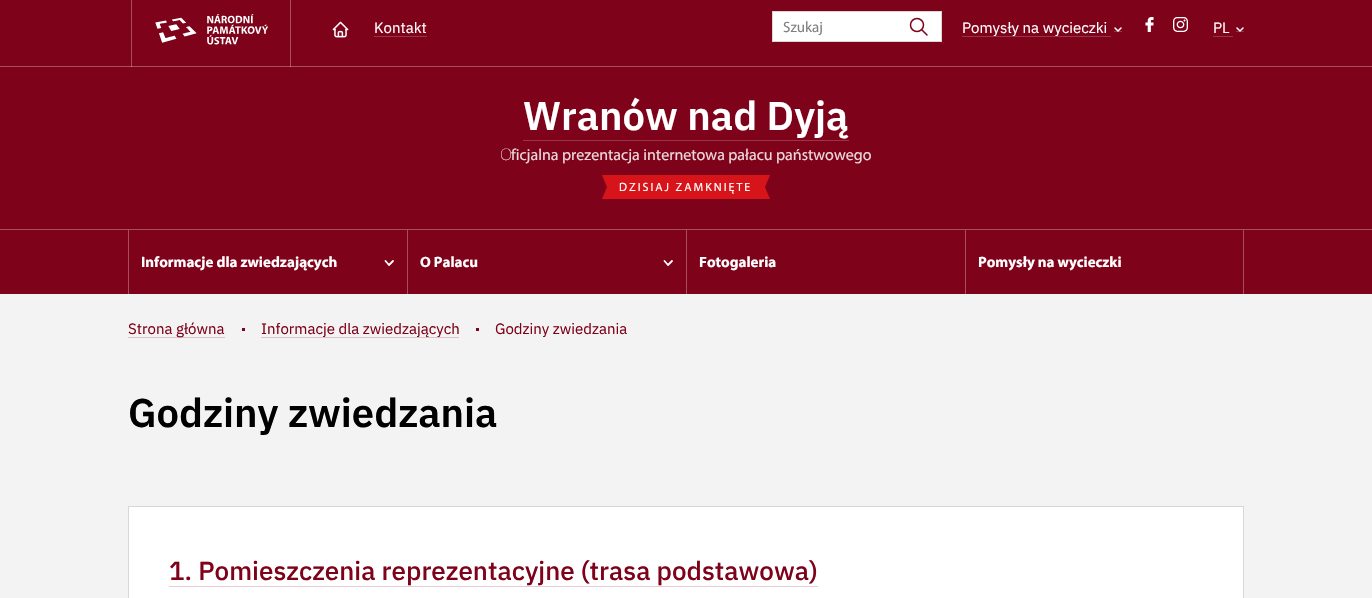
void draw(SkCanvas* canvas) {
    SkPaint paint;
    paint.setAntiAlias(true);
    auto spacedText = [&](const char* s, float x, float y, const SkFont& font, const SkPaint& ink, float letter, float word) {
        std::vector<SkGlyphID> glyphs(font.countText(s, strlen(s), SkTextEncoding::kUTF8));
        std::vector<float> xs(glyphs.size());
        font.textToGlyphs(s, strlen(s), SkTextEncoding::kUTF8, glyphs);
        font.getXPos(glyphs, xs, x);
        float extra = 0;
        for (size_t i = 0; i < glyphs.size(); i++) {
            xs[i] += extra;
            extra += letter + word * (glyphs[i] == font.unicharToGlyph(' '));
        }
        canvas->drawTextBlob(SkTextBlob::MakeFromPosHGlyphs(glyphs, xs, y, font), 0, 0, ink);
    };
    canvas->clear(0xFFF3F3F3);
    paint.setColor(0xFF7E0219);
    canvas->drawRect(SkRect::MakeXYWH(0, 0, 1372, 294), paint);
    paint.setColor(0xFFA54E5E);
    canvas->drawRect(SkRect::MakeXYWH(131, 0, 1, 67), paint);
    canvas->drawRect(SkRect::MakeXYWH(290, 0, 1, 67), paint);
    canvas->drawRect(SkRect::MakeXYWH(0, 66, 1372, 1), paint);
    paint.setColor(0xFFC0838E);
    canvas->drawRect(SkRect::MakeXYWH(131, 66, 1, 1), paint);
    canvas->drawRect(SkRect::MakeXYWH(290, 66, 1, 1), paint);
    canvas->drawImageRect(SkImages::DeferredFromEncodedData(SkData::MakeFromFileName("img1.png")), SkRect::MakeXYWH(155, 14, 114, 31), SkSamplingOptions());
    canvas->drawImageRect(SkImages::DeferredFromEncodedData(SkData::MakeFromFileName("img2.png")), SkRect::MakeXYWH(332, 21, 17, 17), SkSamplingOptions());
    SkFont font1(fontMgr->matchFamilyStyle("IBM Plex Sans", SkFontStyle::Normal()), 15);
    font1.setSubpixel(true);
    paint.setColor(0xFFFFFFFF);
    canvas->drawString("Kontakt", 374, 33, font1, paint);
    paint.setColor(0xFF983547);
    canvas->drawRect(SkRect::MakeXYWH(374, 36, 53, 1), paint);
    paint.setColor(0xFFFFFFFF);
    canvas->drawRect(SkRect::MakeXYWH(772.5f, 11.5f, 169, 30), paint);
    paint.setStyle(SkPaint::kStroke_Style);
    paint.setStrokeWidth(1);
    paint.setColor(0xFFDAD6D6);
    canvas->drawRect(SkRect::MakeXYWH(772.5f, 11.5f, 169, 30), paint);
    SkFont font2(fontMgr->matchFamilyStyle("Myriad", SkFontStyle::Normal()), 15);
    font2.setSubpixel(true);
    paint.setStyle(SkPaint::kFill_Style);
    paint.setColor(0xFF808080);
    canvas->drawString("Szukaj", 783, 32, font2, paint);
    paint.setStyle(SkPaint::kStroke_Style);
    paint.setStrokeWidth(1.5f);
    paint.setColor(0xFF7E0219);
    canvas->drawCircle(917, 25, 6.5f, paint);
    paint.setStrokeCap(SkPaint::kRound_Cap);
    paint.setStrokeJoin(SkPaint::kRound_Join);
    canvas->drawPath(SkPathBuilder().moveTo(927, 35).lineTo(922, 30).detach(), paint);
    paint.setStyle(SkPaint::kFill_Style);
    paint.setColor(0xFFFFFFFF);
    canvas->drawString("Pomysły na wycieczki", 962, 33, font1, paint);
    paint.setColor(0xFF983547);
    canvas->drawRect(SkRect::MakeXYWH(962, 36, 149, 1), paint);
    canvas->drawRect(SkRect::MakeXYWH(1114, 31, 8, 1), paint);
    paint.setStyle(SkPaint::kStroke_Style);
    paint.setColor(0xFFFFFFFF);
    canvas->drawPath(SkPathBuilder().moveTo(1121, 28).lineTo(1118, 31).lineTo(1115, 28).detach(), paint);
    canvas->drawImageRect(SkImages::DeferredFromEncodedData(SkData::MakeFromFileName("img3.png")), SkRect::MakeXYWH(1145, 17, 9, 15), SkSamplingOptions());
    canvas->drawImageRect(SkImages::DeferredFromEncodedData(SkData::MakeFromFileName("img4.png")), SkRect::MakeXYWH(1173, 17, 15, 15), SkSamplingOptions());
    paint.setStyle(SkPaint::kFill_Style);
    canvas->drawString("PL", 1213, 33, font1, paint);
    paint.setColor(0xFF983547);
    canvas->drawRect(SkRect::MakeXYWH(1213, 36, 20, 1), paint);
    canvas->drawRect(SkRect::MakeXYWH(1236, 31, 8, 1), paint);
    paint.setStyle(SkPaint::kStroke_Style);
    paint.setColor(0xFFFFFFFF);
    canvas->drawPath(SkPathBuilder().moveTo(1243, 28).lineTo(1240, 31).lineTo(1237, 28).detach(), paint);
    paint.setStyle(SkPaint::kFill_Style);
    paint.setColor(0xFFA54E5E);
    canvas->drawRect(SkRect::MakeXYWH(0, 229, 1372, 1), paint);
    SkFont font3(fontMgr->matchFamilyStyle("IBM Plex Sans", SkFontStyle(600, SkFontStyle::kNormal_Width, SkFontStyle::kUpright_Slant)), 40);
    font3.setSubpixel(true);
    paint.setColor(0xFFFFFFFF);
    canvas->drawString("Wranów nad Dyją", 523, 130, font3, paint);
    paint.setColor(0xFF983547);
    canvas->drawRect(SkRect::MakeXYWH(523, 140, 326, 1), paint);
    SkFont font4(fontMgr->matchFamilyStyle("Noto Sans", SkFontStyle(100, SkFontStyle::kNormal_Width, SkFontStyle::kUpright_Slant)), 16);
    font4.setSubpixel(true);
    paint.setColor(0xFFECD9DD);
    canvas->drawString("O", 500, 160, font4, paint);
    SkFont font5(fontMgr->matchFamilyStyle("Myriad", SkFontStyle::Normal()), 16);
    font5.setSubpixel(true);
    canvas->drawString("ficjalna prezentacja internetowa pałacu państwowego", 511, 160, font5, paint);
    paint.setColor(0xFFD7141A);
    canvas->drawRect(SkRect::MakeXYWH(612, 175, 148, 24), paint);
    canvas->drawPath(SkPathBuilder().moveTo(602, 175).lineTo(612, 175).lineTo(607, 187).close().detach(), paint);
    canvas->drawRect(SkRect::MakeXYWH(607, 175, 5, 24), paint);
    canvas->drawPath(SkPathBuilder().moveTo(612, 199).lineTo(602, 199).lineTo(607, 187).close().detach(), paint);
    SkFont font6(fontMgr->matchFamilyStyle("Myriad", SkFontStyle::Normal()), 12);
    font6.setSubpixel(true);
    paint.setColor(0xFFFFFFFF);
    spacedText("DZISIAJ ZAMKNIĘTE", 619, 191, font6, paint, 2, 0);
    paint.setColor(0xFFD7141A);
    canvas->drawPath(SkPathBuilder().moveTo(760, 175).lineTo(770, 175).lineTo(765, 187).close().moveTo(770, 199).lineTo(760, 199).lineTo(765, 187).close().detach(), paint);
    canvas->drawRect(SkRect::MakeXYWH(760, 175, 5, 24), paint);
    paint.setColor(0xFFA54E5E);
    canvas->drawRect(SkRect::MakeXYWH(128, 230, 1, 64), paint);
    SkFont font7(fontMgr->matchFamilyStyle("Myriad", SkFontStyle::Bold()), 15);
    font7.setSubpixel(true);
    paint.setColor(0xFFFFFFFF);
    canvas->drawString("Informacje dla zwiedzających", 141, 267, font7, paint);
    paint.setStyle(SkPaint::kStroke_Style);
    paint.setStrokeWidth(1.8f);
    canvas->drawPath(SkPathBuilder().moveTo(393, 261).lineTo(389, 265).lineTo(385.5f, 261).detach(), paint);
    paint.setStyle(SkPaint::kFill_Style);
    paint.setColor(0xFFA54E5E);
    canvas->drawRect(SkRect::MakeXYWH(407, 230, 1, 64), paint);
    paint.setColor(0xFFFFFFFF);
    canvas->drawString("O Palacu", 420, 267, font7, paint);
    paint.setStyle(SkPaint::kStroke_Style);
    canvas->drawPath(SkPathBuilder().moveTo(672, 261).lineTo(668, 265).lineTo(664.5f, 261).detach(), paint);
    paint.setStyle(SkPaint::kFill_Style);
    paint.setColor(0xFFA54E5E);
    canvas->drawRect(SkRect::MakeXYWH(686, 230, 1, 64), paint);
    paint.setColor(0xFFFFFFFF);
    canvas->drawString("Fotogaleria", 699, 267, font7, paint);
    paint.setColor(0xFFA54E5E);
    canvas->drawRect(SkRect::MakeXYWH(1243, 230, 1, 64), paint);
    canvas->drawRect(SkRect::MakeXYWH(965, 230, 1, 64), paint);
    paint.setColor(0xFFFFFFFF);
    canvas->drawString("Pomysły na wycieczki", 978, 267, font7, paint);
    paint.setColor(0xFFDCC3C7);
    canvas->drawRect(SkRect::MakeXYWH(128, 337, 97, 1), paint);
    paint.setColor(0xFF7E0219);
    canvas->drawString("Strona główna", 128, 334, font1, paint);
    canvas->drawRect(SkRect::MakeXYWH(242, 328, 3, 3), paint);
    paint.setColor(0xFFDCC3C7);
    canvas->drawRect(SkRect::MakeXYWH(261, 337, 198, 1), paint);
    paint.setColor(0xFF7E0219);
    canvas->drawString("Informacje dla zwiedzających", 261, 334, font1, paint);
    canvas->drawRect(SkRect::MakeXYWH(476, 328, 3, 3), paint);
    canvas->drawString("Godziny zwiedzania", 495, 334, font1, paint);
    paint.setColor(0xFF000000);
    canvas->drawString("Godziny zwiedzania", 128, 427, font3, paint);
    paint.setColor(0xFFFFFFFF);
    canvas->drawRect(SkRect::MakeXYWH(128.5f, 506.5f, 1115, 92), paint);
    paint.setStyle(SkPaint::kStroke_Style);
    paint.setStrokeWidth(1);
    paint.setStrokeCap(SkPaint::kButt_Cap);
    paint.setStrokeJoin(SkPaint::kMiter_Join);
    paint.setColor(0xFFDAD6D6);
    canvas->drawRect(SkRect::MakeXYWH(128.5f, 506.5f, 1115, 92), paint);
    SkFont font8(fontMgr->matchFamilyStyle("IBM Plex Sans", SkFontStyle(500, SkFontStyle::kNormal_Width, SkFontStyle::kUpright_Slant)), 26);
    font8.setSubpixel(true);
    paint.setStyle(SkPaint::kFill_Style);
    paint.setColor(0xFF7E0219);
    canvas->drawString("1. Pomieszczenia reprezentacyjne (trasa podstawowa)", 169, 580, font8, paint);
    paint.setColor(0xFFE5CCD1);
    canvas->drawRect(SkRect::MakeXYWH(169, 586, 649, 1), paint);
}
